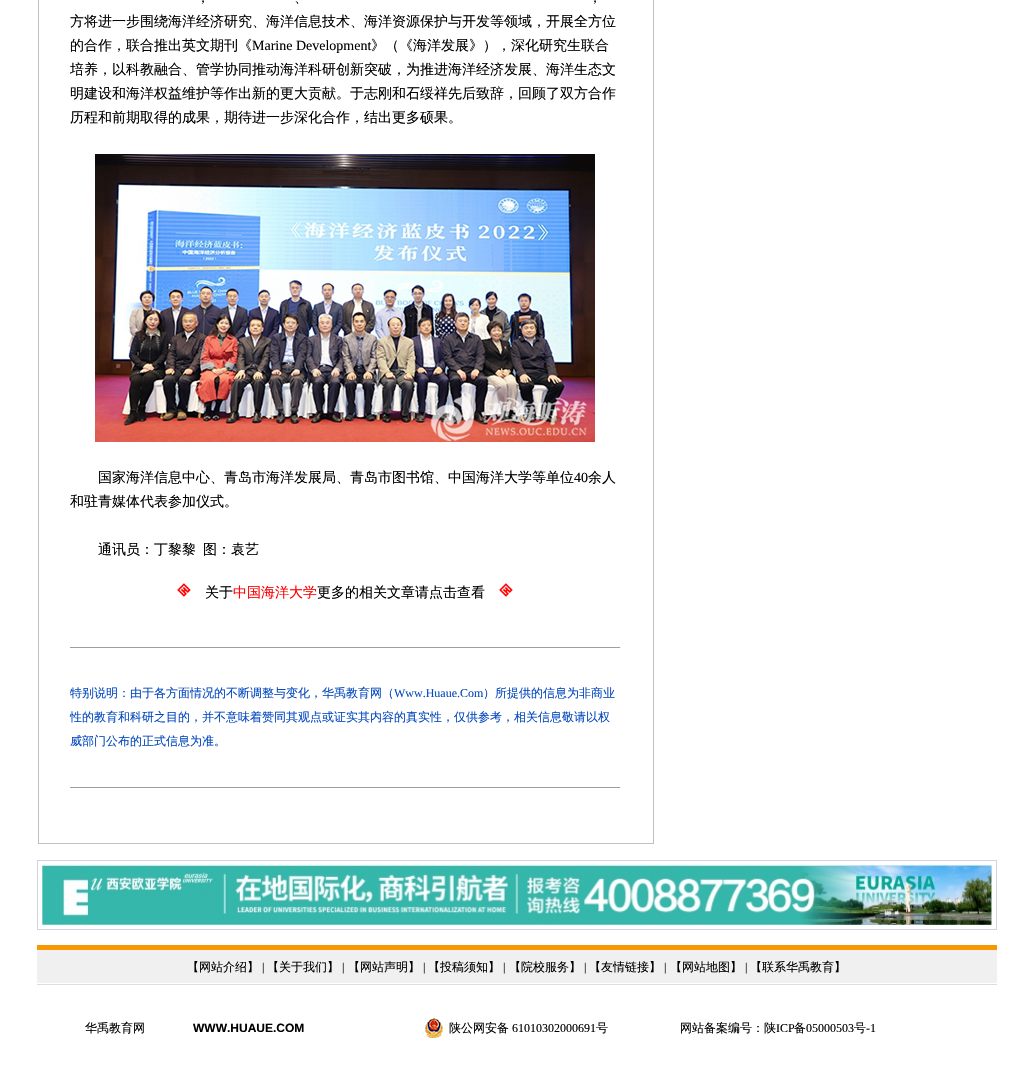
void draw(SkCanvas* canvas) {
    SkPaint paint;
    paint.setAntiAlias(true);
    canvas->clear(0xFFFFFFFF);
    paint.setColor(0xFFC0C0C0);
    canvas->drawRect(SkRect::MakeXYWH(38, 0, 616, 844), paint);
    paint.setColor(0xFFFFFFFF);
    canvas->drawRect(SkRect::MakeXYWH(39, 0, 614, 843), paint);
    SkFont font1(fontMgr->matchFamilyStyle("WenQuanYi Zen Hei", SkFontStyle(500, SkFontStyle::kNormal_Width, SkFontStyle::kUpright_Slant)), 14);
    font1.setSubpixel(true);
    paint.setColor(0xFF000000);
    canvas->drawString("，", 196, 2, font1, paint);
    canvas->drawString("、", 294, 2, font1, paint);
    canvas->drawString("，", 588, 2, font1, paint);
    canvas->drawString("方将进一步围绕海洋经济研究、海洋信息技术、海洋资源保护与开发等领域，开展全方位", 70, 26, font1, paint);
    canvas->drawString("的合作，联合推出英文期刊《", 70, 50, font1, paint);
    SkFont font2(fontMgr->matchFamilyStyle("Liberation Serif", SkFontStyle::Normal()), 14);
    font2.setSubpixel(true);
    canvas->drawString("Marine Development", 252, 50, font2, paint);
    canvas->drawString("》（《海洋发展》），深化研究生联合", 371, 50, font1, paint);
    canvas->drawString("培养，以科教融合、管学协同推动海洋科研创新突破，为推进海洋经济发展、海洋生态文", 70, 74, font1, paint);
    canvas->drawString("明建设和海洋权益维护等作出新的更大贡献。于志刚和石绥祥先后致辞，回顾了双方合作", 70, 98, font1, paint);
    canvas->drawString("历程和前期取得的成果，期待进一步深化合作，结出更多硕果。", 70, 122, font1, paint);
    canvas->drawImageRect(SkImages::DeferredFromEncodedData(SkData::MakeFromFileName("img1.png")), SkRect::MakeXYWH(95, 154, 500, 288), SkSamplingOptions());
    canvas->drawString("国家海洋信息中心、青岛市海洋发展局、青岛市图书馆、中国海洋大学等单位", 98, 482, font1, paint);
    canvas->drawString("40", 574, 482, font2, paint);
    canvas->drawString("余人", 588, 482, font1, paint);
    canvas->drawString("和驻青媒体代表参加仪式。", 70, 506, font1, paint);
    canvas->drawString("通讯员：丁黎黎", 98, 554, font1, paint);
    canvas->drawString("图：袁艺", 203, 554, font1, paint);
    canvas->drawImageRect(SkImages::DeferredFromEncodedData(SkData::MakeFromFileName("img2.png")), SkRect::MakeXYWH(177, 583, 14, 14), SkSamplingOptions());
    canvas->drawString("关于", 205, 597, font1, paint);
    paint.setColor(0xFFFF0000);
    canvas->drawString("中国海洋大学", 233, 597, font1, paint);
    paint.setColor(0xFF000000);
    canvas->drawString("更多的相关文章请点击查看", 317, 597, font1, paint);
    canvas->drawImageRect(SkImages::DeferredFromEncodedData(SkData::MakeFromFileName("img2.png")), SkRect::MakeXYWH(499, 583, 14, 14), SkSamplingOptions());
    paint.setColor(0xFF9F9F9F);
    canvas->drawRect(SkRect::MakeXYWH(70, 647, 551, 1), paint);
    paint.setColor(0xFFEEEEEE);
    canvas->drawRect(SkRect::MakeXYWH(620, 647, 1, 1), paint);
    SkFont font3(fontMgr->matchFamilyStyle("WenQuanYi Zen Hei", SkFontStyle(500, SkFontStyle::kNormal_Width, SkFontStyle::kUpright_Slant)), 12);
    font3.setSubpixel(true);
    paint.setColor(0xFF0449BE);
    canvas->drawString("特别说明：由于各方面情况的不断调整与变化，华禹教育网（", 70, 697, font3, paint);
    SkFont font4(fontMgr->matchFamilyStyle("Liberation Serif", SkFontStyle::Normal()), 12);
    font4.setSubpixel(true);
    canvas->drawString("Www.Huaue.Com", 394, 697, font4, paint);
    canvas->drawString("）所提供的信息为非商业", 483, 697, font3, paint);
    canvas->drawString("性的教育和科研之目的，并不意味着赞同其观点或证实其内容的真实性，仅供参考，相关信息敬请以权", 70, 721, font3, paint);
    canvas->drawString("威部门公布的正式信息为准。", 70, 745, font3, paint);
    paint.setColor(0xFF9F9F9F);
    canvas->drawRect(SkRect::MakeXYWH(70, 787, 551, 1), paint);
    paint.setColor(0xFFEEEEEE);
    canvas->drawRect(SkRect::MakeXYWH(620, 787, 1, 1), paint);
    paint.setColor(0xFFD3D2E1);
    canvas->drawRect(SkRect::MakeXYWH(37, 860, 960, 70), paint);
    paint.setColor(0xFFFFFFFF);
    canvas->drawRect(SkRect::MakeXYWH(38, 861, 958, 68), paint);
    canvas->drawImageRect(SkImages::DeferredFromEncodedData(SkData::MakeFromFileName("img3.png")), SkRect::MakeXYWH(42, 865, 950, 60), SkSamplingOptions());
    paint.setColor(0xFFF79800);
    canvas->drawRect(SkRect::MakeXYWH(37, 945, 960, 5), paint);
    canvas->drawImageRect(SkImages::DeferredFromEncodedData(SkData::MakeFromFileName("img4.png")), SkRect::MakeXYWH(37, 950, 960, 35), SkSamplingOptions());
    paint.setColor(0xFF000000);
    canvas->drawString("【网站介绍】", 187, 971, font3, paint);
    canvas->drawString("|", 262, 971, font4, paint);
    canvas->drawString("【关于我们】", 267, 971, font3, paint);
    canvas->drawString("|", 342, 971, font4, paint);
    canvas->drawString("【网站声明】", 348, 971, font3, paint);
    canvas->drawString("|", 423, 971, font4, paint);
    canvas->drawString("【投稿须知】", 428, 971, font3, paint);
    canvas->drawString("|", 503, 971, font4, paint);
    canvas->drawString("【院校服务】", 509, 971, font3, paint);
    canvas->drawString("|", 584, 971, font4, paint);
    canvas->drawString("【友情链接】", 589, 971, font3, paint);
    canvas->drawString("|", 664, 971, font4, paint);
    canvas->drawString("【网站地图】", 670, 971, font3, paint);
    canvas->drawString("|", 745, 971, font4, paint);
    canvas->drawString("【联系华禹教育】", 750, 971, font3, paint);
    canvas->drawString("华禹教育网", 85, 1032, font3, paint);
    SkFont font5(fontMgr->matchFamilyStyle("Liberation Sans", SkFontStyle::Bold()), 12);
    font5.setSubpixel(true);
    canvas->drawString("WWW.HUAUE.COM", 193, 1032, font5, paint);
    canvas->drawImageRect(SkImages::DeferredFromEncodedData(SkData::MakeFromFileName("img5.png")), SkRect::MakeXYWH(425, 1018, 18, 20), SkSamplingOptions());
    canvas->drawString("陕公网安备", 449, 1032, font3, paint);
    canvas->drawString("61010302000691", 512, 1032, font4, paint);
    canvas->drawString("号", 596, 1032, font3, paint);
    canvas->drawString("网站备案编号：陕", 680, 1032, font3, paint);
    canvas->drawString("ICP", 776, 1032, font4, paint);
    canvas->drawString("备", 794, 1032, font3, paint);
    canvas->drawString("05000503", 806, 1032, font4, paint);
    canvas->drawString("号", 854, 1032, font3, paint);
    canvas->drawString("-1", 866, 1032, font4, paint);
}
